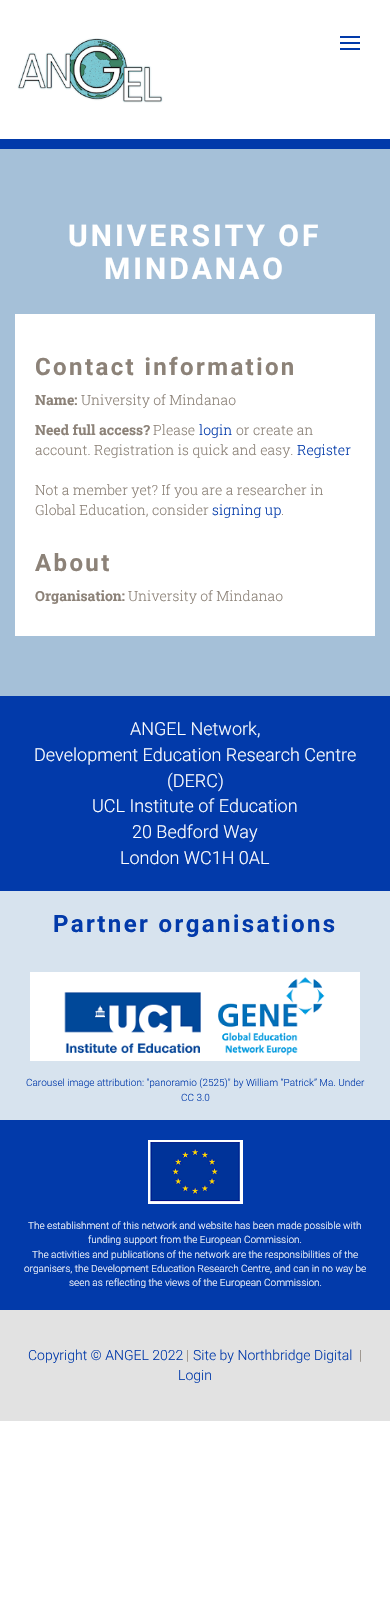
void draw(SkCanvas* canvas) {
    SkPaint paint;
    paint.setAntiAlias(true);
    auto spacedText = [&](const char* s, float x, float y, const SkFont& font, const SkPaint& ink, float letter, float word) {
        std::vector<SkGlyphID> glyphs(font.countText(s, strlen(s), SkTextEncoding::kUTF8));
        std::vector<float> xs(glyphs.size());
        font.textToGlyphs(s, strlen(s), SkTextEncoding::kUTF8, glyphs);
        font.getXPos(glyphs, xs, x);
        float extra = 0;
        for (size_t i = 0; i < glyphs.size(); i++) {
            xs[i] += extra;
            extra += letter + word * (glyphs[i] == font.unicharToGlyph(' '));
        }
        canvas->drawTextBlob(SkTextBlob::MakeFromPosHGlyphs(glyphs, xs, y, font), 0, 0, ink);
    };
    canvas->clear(0xFFFFFFFF);
    paint.setColor(0xFF023AAA);
    canvas->drawRect(SkRect::MakeXYWH(0, 139, 390, 10), paint);
    canvas->drawRect(SkRect::MakeXYWH(340, 36, 20, 2), paint);
    canvas->drawRect(SkRect::MakeXYWH(340, 42, 20, 2), paint);
    canvas->drawRect(SkRect::MakeXYWH(340, 48, 20, 2), paint);
    canvas->drawImageRect(SkImages::DeferredFromEncodedData(SkData::MakeFromFileName("img1.png")), SkRect::MakeXYWH(17, 38, 146, 65), SkSamplingOptions());
    paint.setColor(0xFFA5C0D8);
    canvas->drawRect(SkRect::MakeXYWH(0, 149, 390, 547), paint);
    SkFont font1(fontMgr->matchFamilyStyle("Roboto", SkFontStyle::Bold()), 30);
    font1.setSubpixel(true);
    paint.setColor(0xFFFFFFFF);
    spacedText("UNIVERSITY OF", 68, 246, font1, paint, 3, 0);
    spacedText("MINDANAO", 104, 279, font1, paint, 3, 0);
    canvas->drawRect(SkRect::MakeXYWH(15, 314, 360, 322), paint);
    SkFont font2(fontMgr->matchFamilyStyle("Roboto", SkFontStyle::Bold()), 24);
    font2.setSubpixel(true);
    paint.setColor(0xFF8C8278);
    spacedText("Contact information", 35, 375, font2, paint, 2.4f, 0);
    SkFont font3(fontMgr->matchFamilyStyle("Roboto Slab", SkFontStyle::Bold()), 14);
    font3.setSubpixel(true);
    canvas->drawString("Name:", 35, 405, font3, paint);
    SkFont font4(fontMgr->matchFamilyStyle("Roboto Slab", SkFontStyle(300, SkFontStyle::kNormal_Width, SkFontStyle::kUpright_Slant)), 14);
    font4.setSubpixel(true);
    canvas->drawString("University of Mindanao", 81, 405, font4, paint);
    canvas->drawString("Need full access?", 35, 435, font3, paint);
    canvas->drawString("Please", 153, 435, font4, paint);
    paint.setColor(0xFF023AAA);
    canvas->drawString("login", 199, 435, font4, paint);
    paint.setColor(0xFF8C8278);
    canvas->drawString("or create an", 236, 435, font4, paint);
    canvas->drawString("account. Registration is quick and easy.", 35, 455, font4, paint);
    paint.setColor(0xFF023AAA);
    canvas->drawString("Register", 297, 455, font4, paint);
    paint.setColor(0xFF8C8278);
    canvas->drawString("Not a member yet? If you are a researcher in", 35, 495, font4, paint);
    canvas->drawString("Global Education, consider", 35, 515, font4, paint);
    paint.setColor(0xFF023AAA);
    canvas->drawString("signing up", 212, 515, font4, paint);
    paint.setColor(0xFF8C8278);
    canvas->drawString(".", 281, 515, font4, paint);
    spacedText("About", 35, 571, font2, paint, 2.4f, 0);
    canvas->drawString("Organisation:", 35, 601, font3, paint);
    canvas->drawString("University of Mindanao", 128, 601, font4, paint);
    paint.setColor(0xFF023AAA);
    canvas->drawRect(SkRect::MakeXYWH(0, 696, 390, 614), paint);
    SkFont font5(fontMgr->matchFamilyStyle("Roboto", SkFontStyle(300, SkFontStyle::kNormal_Width, SkFontStyle::kUpright_Slant)), 18);
    font5.setSubpixel(true);
    paint.setColor(0xFFFFFFFF);
    canvas->drawString("ANGEL Network,", 130, 735, font5, paint);
    canvas->drawString("Development Education Research Centre", 34, 761, font5, paint);
    canvas->drawString("(DERC)", 167, 787, font5, paint);
    canvas->drawString("UCL Institute of Education", 92, 812, font5, paint);
    canvas->drawString("20 Bedford Way", 132, 838, font5, paint);
    canvas->drawString("London WC1H 0AL", 120, 864, font5, paint);
    paint.setColor(0xFFD7E3EE);
    canvas->drawRect(SkRect::MakeXYWH(0, 891, 390, 229), paint);
    paint.setColor(0xFF023AAA);
    spacedText("Partner organisations", 53, 932, font2, paint, 2.4f, 0);
    canvas->drawImageRect(SkImages::DeferredFromEncodedData(SkData::MakeFromFileName("img2.png")), SkRect::MakeXYWH(30, 972, 330, 89), SkSamplingOptions());
    SkFont font6(fontMgr->matchFamilyStyle("Roboto", SkFontStyle(300, SkFontStyle::kNormal_Width, SkFontStyle::kUpright_Slant)), 10);
    font6.setSubpixel(true);
    canvas->drawString("Carousel image attribution: \"panoramio (2525)\" by William “Patrick” Ma. Under", 26, 1086, font6, paint);
    canvas->drawString("CC 3.0", 181, 1101, font6, paint);
    canvas->drawImageRect(SkImages::DeferredFromEncodedData(SkData::MakeFromFileName("img3.png")), SkRect::MakeXYWH(148, 1140, 95, 64), SkSamplingOptions());
    paint.setColor(0xFFFFFFFF);
    canvas->drawString("The establishment of this network and website has been made possible with", 28, 1229, font6, paint);
    canvas->drawString("funding support from the European Commission.", 88, 1243, font6, paint);
    canvas->drawString("The activities and publications of the network are the responsibilities of the", 32, 1258, font6, paint);
    canvas->drawString("organisers, the Development Education Research Centre, and can in no way be", 24, 1272, font6, paint);
    canvas->drawString("seen as reflecting the views of the European Commission.", 69, 1286, font6, paint);
    paint.setColor(0xFFE2E2E2);
    canvas->drawRect(SkRect::MakeXYWH(0, 1310, 390, 111), paint);
    SkFont font7(fontMgr->matchFamilyStyle("Roboto", SkFontStyle(300, SkFontStyle::kNormal_Width, SkFontStyle::kUpright_Slant)), 14);
    font7.setSubpixel(true);
    paint.setColor(0xFF023AAA);
    canvas->drawString("Copyright © ANGEL 2022", 28, 1360, font7, paint);
    paint.setColor(0xFF8C8278);
    canvas->drawString("|", 186, 1360, font7, paint);
    paint.setColor(0xFF023AAA);
    canvas->drawString("Site by Northbridge Digital", 193, 1360, font7, paint);
    paint.setColor(0xFF8C8278);
    canvas->drawString("|", 359, 1360, font7, paint);
    paint.setColor(0xFF023AAA);
    canvas->drawString("Login", 178, 1380, font7, paint);
}
